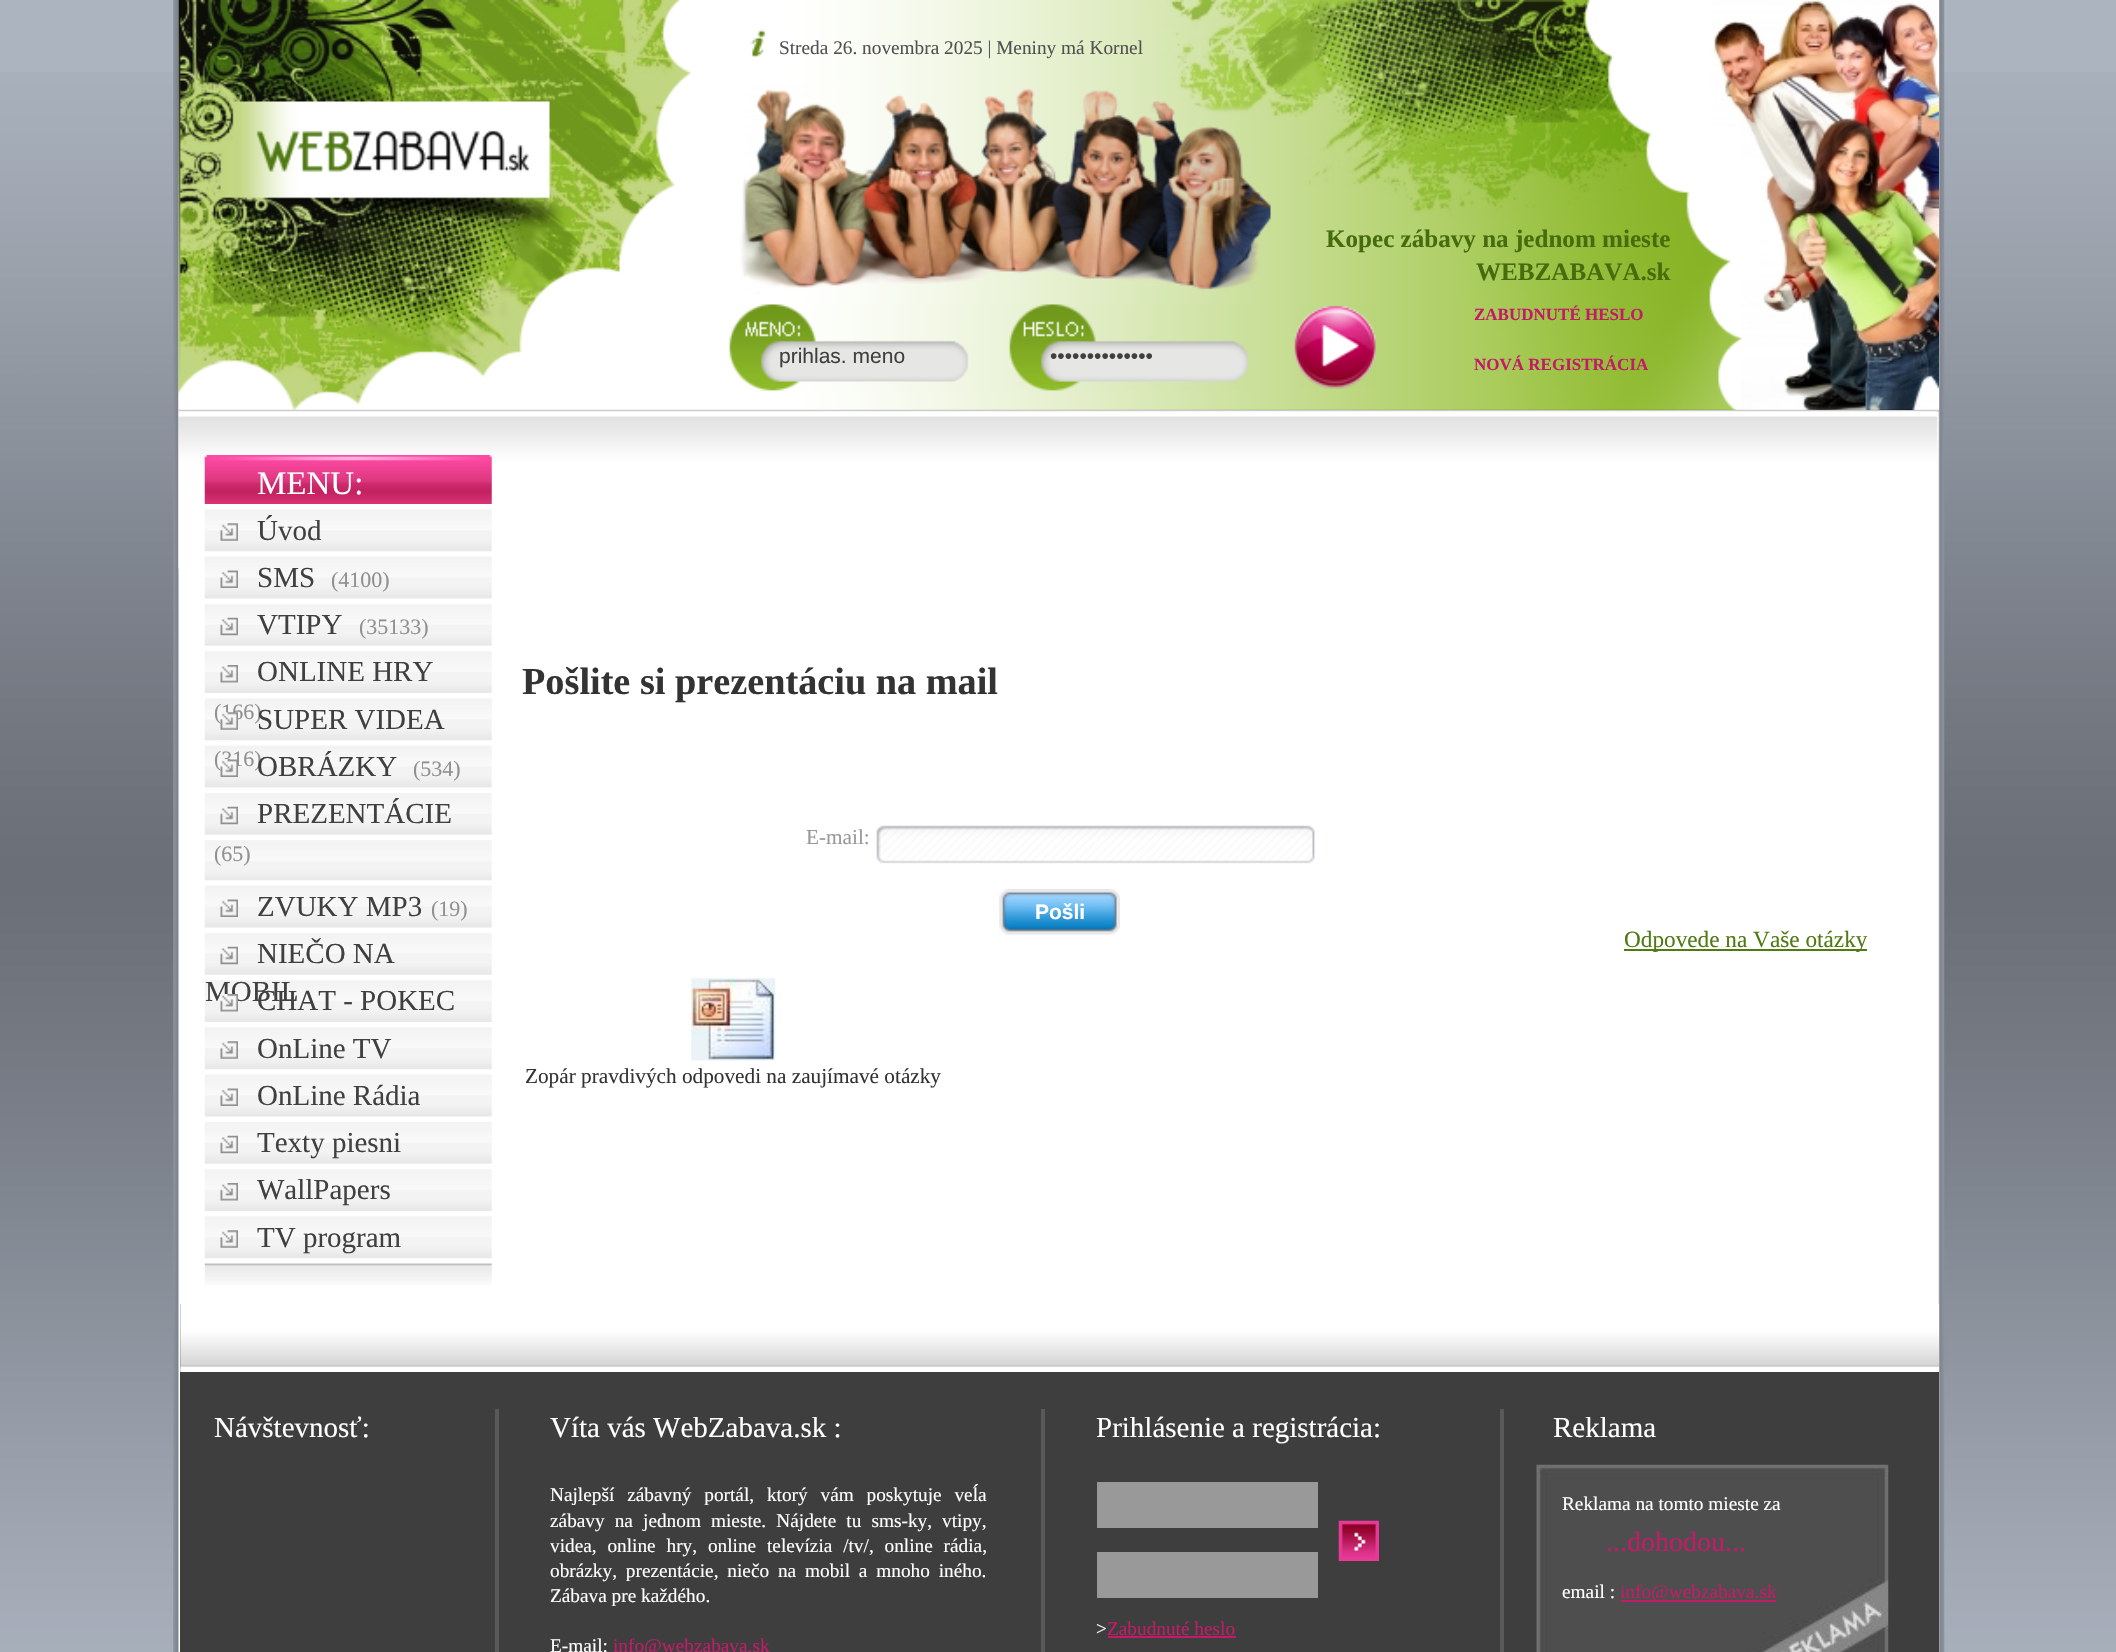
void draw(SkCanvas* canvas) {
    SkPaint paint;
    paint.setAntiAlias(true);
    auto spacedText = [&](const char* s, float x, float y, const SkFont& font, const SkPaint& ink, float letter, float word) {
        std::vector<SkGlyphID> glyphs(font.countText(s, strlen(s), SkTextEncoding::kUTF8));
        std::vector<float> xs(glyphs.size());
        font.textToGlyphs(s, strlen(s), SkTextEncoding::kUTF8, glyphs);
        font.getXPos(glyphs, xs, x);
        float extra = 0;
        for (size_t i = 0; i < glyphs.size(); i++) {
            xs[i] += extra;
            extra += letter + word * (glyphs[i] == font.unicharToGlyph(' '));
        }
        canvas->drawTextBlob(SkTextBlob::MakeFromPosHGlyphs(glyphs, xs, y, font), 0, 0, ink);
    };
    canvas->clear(0xFFACB4C0);
    canvas->drawImageRect(SkImages::DeferredFromEncodedData(SkData::MakeFromFileName("img1.png")), SkRect::MakeXYWH(0, 72, 2116, 1580), SkSamplingOptions());
    canvas->drawImageRect(SkImages::DeferredFromEncodedData(SkData::MakeFromFileName("img2.png")), SkRect::MakeXYWH(173, 0, 1772, 1652), SkSamplingOptions());
    canvas->drawImageRect(SkImages::DeferredFromEncodedData(SkData::MakeFromFileName("img3.png")), SkRect::MakeXYWH(178, 0, 1761, 412), SkSamplingOptions());
    paint.setColor(0xFFCCCCCC);
    canvas->drawRect(SkRect::MakeXYWH(179, 410, 1760, 2), paint);
    canvas->drawImageRect(SkImages::DeferredFromEncodedData(SkData::MakeFromFileName("img4.png")), SkRect::MakeXYWH(750, 29, 16, 29), SkSamplingOptions());
    SkFont font1(fontMgr->matchFamilyStyle("Liberation Serif", SkFontStyle::Normal()), 19.3f);
    font1.setSubpixel(true);
    paint.setColor(0xFF515151);
    canvas->drawString("Streda 26. novembra 2025 | Meniny má Kornel", 779, 54, font1, paint);
    canvas->drawImageRect(SkImages::DeferredFromEncodedData(SkData::MakeFromFileName("img5.png")), SkRect::MakeXYWH(256, 129, 274, 43), SkSamplingOptions());
    SkFont font2(fontMgr->matchFamilyStyle("Liberation Serif", SkFontStyle::Bold()), 25.1f);
    font2.setSubpixel(true);
    paint.setColor(0xFF466C0E);
    canvas->drawString("Kopec zábavy na jednom mieste", 1326, 247, font2, paint);
    canvas->drawString("WEBZABAVA.sk", 1476, 280, font2, paint);
    canvas->drawImageRect(SkImages::DeferredFromEncodedData(SkData::MakeFromFileName("img6.png")), SkRect::MakeXYWH(729, 304, 520, 87), SkSamplingOptions());
    SkFont font3(fontMgr->matchFamilyStyle("Liberation Sans", SkFontStyle::Normal()), 21);
    font3.setSubpixel(true);
    paint.setColor(0xFF404040);
    canvas->drawString("prihlas. meno", 779, 363, font3, paint);
    canvas->drawString("••••••••••••••", 1050, 363, font3, paint);
    canvas->drawImageRect(SkImages::DeferredFromEncodedData(SkData::MakeFromFileName("img7.png")), SkRect::MakeXYWH(1294, 305, 82, 84), SkSamplingOptions());
    SkFont font4(fontMgr->matchFamilyStyle("Liberation Serif", SkFontStyle::Bold()), 17);
    font4.setSubpixel(true);
    paint.setColor(0xFFC41B68);
    canvas->drawString("ZABUDNUTÉ HESLO", 1474, 320, font4, paint);
    canvas->drawString("NOVÁ REGISTRÁCIA", 1474, 370, font4, paint);
    canvas->drawImageRect(SkImages::DeferredFromEncodedData(SkData::MakeFromFileName("img8.png")), SkRect::MakeXYWH(178, 411, 1760, 158), SkSamplingOptions());
    canvas->drawImageRect(SkImages::DeferredFromEncodedData(SkData::MakeFromFileName("img9.png")), SkRect::MakeXYWH(204, 455, 288, 49), SkSamplingOptions());
    SkFont font5(fontMgr->matchFamilyStyle("Liberation Serif", SkFontStyle::Normal()), 33);
    font5.setSubpixel(true);
    paint.setColor(0xFFFFFFFF);
    canvas->drawString("MENU:", 257, 494, font5, paint);
    canvas->drawImageRect(SkImages::DeferredFromEncodedData(SkData::MakeFromFileName("img10.png")), SkRect::MakeXYWH(204, 1263, 288, 22), SkSamplingOptions());
    canvas->drawImageRect(SkImages::DeferredFromEncodedData(SkData::MakeFromFileName("img11.png")), SkRect::MakeXYWH(204, 509, 288, 43), SkSamplingOptions());
    canvas->drawImageRect(SkImages::DeferredFromEncodedData(SkData::MakeFromFileName("img12.png")), SkRect::MakeXYWH(220, 523, 18, 18), SkSamplingOptions());
    SkFont font6(fontMgr->matchFamilyStyle("Liberation Serif", SkFontStyle::Normal()), 29);
    font6.setSubpixel(true);
    paint.setColor(0xFF404040);
    canvas->drawString("Úvod", 257, 540, font6, paint);
    canvas->drawImageRect(SkImages::DeferredFromEncodedData(SkData::MakeFromFileName("img13.png")), SkRect::MakeXYWH(204, 556, 288, 43), SkSamplingOptions());
    canvas->drawImageRect(SkImages::DeferredFromEncodedData(SkData::MakeFromFileName("img14.png")), SkRect::MakeXYWH(220, 570, 18, 18), SkSamplingOptions());
    canvas->drawString("SMS", 257, 587, font6, paint);
    SkFont font7(fontMgr->matchFamilyStyle("Liberation Serif", SkFontStyle::Normal()), 22);
    font7.setSubpixel(true);
    paint.setColor(0xFF909090);
    canvas->drawString("(4100)", 331, 587, font7, paint);
    canvas->drawImageRect(SkImages::DeferredFromEncodedData(SkData::MakeFromFileName("img15.png")), SkRect::MakeXYWH(204, 604, 288, 42), SkSamplingOptions());
    canvas->drawImageRect(SkImages::DeferredFromEncodedData(SkData::MakeFromFileName("img16.png")), SkRect::MakeXYWH(220, 617, 18, 19), SkSamplingOptions());
    paint.setColor(0xFF404040);
    canvas->drawString("VTIPY", 257, 634, font6, paint);
    paint.setColor(0xFF909090);
    canvas->drawString("(35133)", 359, 634, font7, paint);
    canvas->drawImageRect(SkImages::DeferredFromEncodedData(SkData::MakeFromFileName("img17.png")), SkRect::MakeXYWH(204, 651, 288, 42), SkSamplingOptions());
    canvas->drawImageRect(SkImages::DeferredFromEncodedData(SkData::MakeFromFileName("img18.png")), SkRect::MakeXYWH(220, 665, 18, 18), SkSamplingOptions());
    paint.setColor(0xFF404040);
    canvas->drawString("ONLINE HRY", 257, 681, font6, paint);
    canvas->drawImageRect(SkImages::DeferredFromEncodedData(SkData::MakeFromFileName("img19.png")), SkRect::MakeXYWH(204, 698, 288, 43), SkSamplingOptions());
    paint.setColor(0xFF909090);
    canvas->drawString("(166)", 214, 719, font7, paint);
    canvas->drawImageRect(SkImages::DeferredFromEncodedData(SkData::MakeFromFileName("img20.png")), SkRect::MakeXYWH(220, 712, 18, 18), SkSamplingOptions());
    paint.setColor(0xFF404040);
    canvas->drawString("SUPER VIDEA", 257, 729, font6, paint);
    canvas->drawImageRect(SkImages::DeferredFromEncodedData(SkData::MakeFromFileName("img13.png")), SkRect::MakeXYWH(204, 745, 288, 43), SkSamplingOptions());
    paint.setColor(0xFF909090);
    canvas->drawString("(316)", 214, 766, font7, paint);
    canvas->drawImageRect(SkImages::DeferredFromEncodedData(SkData::MakeFromFileName("img21.png")), SkRect::MakeXYWH(220, 759, 18, 18), SkSamplingOptions());
    paint.setColor(0xFF404040);
    canvas->drawString("OBRÁZKY", 257, 776, font6, paint);
    paint.setColor(0xFF909090);
    canvas->drawString("(534)", 413, 776, font7, paint);
    canvas->drawImageRect(SkImages::DeferredFromEncodedData(SkData::MakeFromFileName("img15.png")), SkRect::MakeXYWH(204, 793, 288, 42), SkSamplingOptions());
    canvas->drawImageRect(SkImages::DeferredFromEncodedData(SkData::MakeFromFileName("img16.png")), SkRect::MakeXYWH(220, 806, 18, 19), SkSamplingOptions());
    paint.setColor(0xFF404040);
    canvas->drawString("PREZENTÁCIE", 257, 823, font6, paint);
    canvas->drawImageRect(SkImages::DeferredFromEncodedData(SkData::MakeFromFileName("img22.png")), SkRect::MakeXYWH(204, 840, 288, 41), SkSamplingOptions());
    paint.setColor(0xFF909090);
    canvas->drawString("(65)", 214, 861, font7, paint);
    canvas->drawImageRect(SkImages::DeferredFromEncodedData(SkData::MakeFromFileName("img13.png")), SkRect::MakeXYWH(204, 885, 288, 43), SkSamplingOptions());
    canvas->drawImageRect(SkImages::DeferredFromEncodedData(SkData::MakeFromFileName("img14.png")), SkRect::MakeXYWH(220, 899, 18, 18), SkSamplingOptions());
    paint.setColor(0xFF404040);
    canvas->drawString("ZVUKY MP3", 257, 916, font6, paint);
    paint.setColor(0xFF909090);
    canvas->drawString("(19)", 431, 916, font7, paint);
    canvas->drawImageRect(SkImages::DeferredFromEncodedData(SkData::MakeFromFileName("img15.png")), SkRect::MakeXYWH(204, 933, 288, 42), SkSamplingOptions());
    canvas->drawImageRect(SkImages::DeferredFromEncodedData(SkData::MakeFromFileName("img16.png")), SkRect::MakeXYWH(220, 946, 18, 19), SkSamplingOptions());
    paint.setColor(0xFF404040);
    canvas->drawString("NIEČO NA", 257, 963, font6, paint);
    canvas->drawImageRect(SkImages::DeferredFromEncodedData(SkData::MakeFromFileName("img17.png")), SkRect::MakeXYWH(204, 980, 288, 42), SkSamplingOptions());
    canvas->drawString("MOBIL", 205, 1001, font6, paint);
    canvas->drawImageRect(SkImages::DeferredFromEncodedData(SkData::MakeFromFileName("img23.png")), SkRect::MakeXYWH(220, 994, 18, 18), SkSamplingOptions());
    canvas->drawString("CHAT - POKEC", 257, 1010, font6, paint);
    canvas->drawImageRect(SkImages::DeferredFromEncodedData(SkData::MakeFromFileName("img11.png")), SkRect::MakeXYWH(204, 1027, 288, 43), SkSamplingOptions());
    canvas->drawImageRect(SkImages::DeferredFromEncodedData(SkData::MakeFromFileName("img12.png")), SkRect::MakeXYWH(220, 1041, 18, 18), SkSamplingOptions());
    canvas->drawString("OnLine TV", 257, 1058, font6, paint);
    canvas->drawImageRect(SkImages::DeferredFromEncodedData(SkData::MakeFromFileName("img13.png")), SkRect::MakeXYWH(204, 1074, 288, 43), SkSamplingOptions());
    canvas->drawImageRect(SkImages::DeferredFromEncodedData(SkData::MakeFromFileName("img14.png")), SkRect::MakeXYWH(220, 1088, 18, 18), SkSamplingOptions());
    canvas->drawString("OnLine Rádia", 257, 1105, font6, paint);
    canvas->drawImageRect(SkImages::DeferredFromEncodedData(SkData::MakeFromFileName("img15.png")), SkRect::MakeXYWH(204, 1122, 288, 42), SkSamplingOptions());
    canvas->drawImageRect(SkImages::DeferredFromEncodedData(SkData::MakeFromFileName("img16.png")), SkRect::MakeXYWH(220, 1135, 18, 19), SkSamplingOptions());
    canvas->drawString("Texty piesni", 257, 1152, font6, paint);
    canvas->drawImageRect(SkImages::DeferredFromEncodedData(SkData::MakeFromFileName("img17.png")), SkRect::MakeXYWH(204, 1169, 288, 42), SkSamplingOptions());
    canvas->drawImageRect(SkImages::DeferredFromEncodedData(SkData::MakeFromFileName("img18.png")), SkRect::MakeXYWH(220, 1183, 18, 18), SkSamplingOptions());
    canvas->drawString("WallPapers", 257, 1199, font6, paint);
    canvas->drawImageRect(SkImages::DeferredFromEncodedData(SkData::MakeFromFileName("img24.png")), SkRect::MakeXYWH(204, 1216, 288, 43), SkSamplingOptions());
    canvas->drawImageRect(SkImages::DeferredFromEncodedData(SkData::MakeFromFileName("img12.png")), SkRect::MakeXYWH(220, 1230, 18, 18), SkSamplingOptions());
    canvas->drawString("TV program", 257, 1247, font6, paint);
    SkFont font8(fontMgr->matchFamilyStyle("Liberation Serif", SkFontStyle::Bold()), 38.25f);
    font8.setSubpixel(true);
    paint.setColor(0xFF333333);
    canvas->drawString("Pošlite si prezentáciu na mail", 522, 694, font8, paint);
    SkFont font9(fontMgr->matchFamilyStyle("Liberation Serif", SkFontStyle::Normal()), 21.25f);
    font9.setSubpixel(true);
    paint.setColor(0xFF999999);
    canvas->drawString("E-mail:", 806, 844, font9, paint);
    canvas->drawImageRect(SkImages::DeferredFromEncodedData(SkData::MakeFromFileName("img25.png")), SkRect::MakeXYWH(876, 825, 439, 39), SkSamplingOptions());
    canvas->drawImageRect(SkImages::DeferredFromEncodedData(SkData::MakeFromFileName("img26.png")), SkRect::MakeXYWH(999, 889, 121, 46), SkSamplingOptions());
    SkFont font10(fontMgr->matchFamilyStyle("Liberation Sans", SkFontStyle::Bold()), 21);
    font10.setSubpixel(true);
    paint.setColor(0xFFFFFFFF);
    canvas->drawString("Pošli", 1035, 919, font10, paint);
    canvas->drawImageRect(SkImages::DeferredFromEncodedData(SkData::MakeFromFileName("img27.png")), SkRect::MakeXYWH(691, 978, 85, 83), SkSamplingOptions());
    paint.setColor(0xFF333333);
    canvas->drawString("Zopár pravdivých odpovedi na zaujímavé otázky", 525, 1083, font9, paint);
    paint.setColor(0xFF507A13);
    canvas->drawRect(SkRect::MakeXYWH(1624, 949, 243, 2), paint);
    SkFont font11(fontMgr->matchFamilyStyle("Liberation Serif", SkFontStyle::Normal()), 23.25f);
    font11.setSubpixel(true);
    canvas->drawString("Odpovede na Vaše otázky", 1624, 947, font11, paint);
    paint.setColor(0xFF3E3E3E);
    canvas->drawRect(SkRect::MakeXYWH(180, 1304, 1759, 348), paint);
    canvas->drawImageRect(SkImages::DeferredFromEncodedData(SkData::MakeFromFileName("img28.png")), SkRect::MakeXYWH(180, 1303, 1759, 69), SkSamplingOptions());
    paint.setColor(0xFF595959);
    canvas->drawRect(SkRect::MakeXYWH(495, 1409, 4, 243), paint);
    paint.setColor(0xFFFFFFFF);
    canvas->drawString("Návštevnosť:", 214, 1437, font6, paint);
    paint.setColor(0xFF595959);
    canvas->drawRect(SkRect::MakeXYWH(1041, 1409, 4, 243), paint);
    paint.setColor(0xFFFFFFFF);
    canvas->drawString("Víta vás WebZabava.sk :", 550, 1437, font6, paint);
    spacedText("Najlepší zábavný portál, ktorý vám poskytuje veĺa", 550, 1501, font1, paint, 0, 8);
    spacedText("zábavy na jednom mieste. Nájdete tu sms-ky, vtipy,", 550, 1527, font1, paint, 0, 5.25f);
    spacedText("videa, online hry, online televízia /tv/, online rádia,", 550, 1552, font1, paint, 0, 6);
    spacedText("obrázky, prezentácie, niečo na mobil a mnoho iného.", 550, 1577, font1, paint, 0, 4);
    canvas->drawString("Zábava pre každého.", 550, 1602, font1, paint);
    canvas->drawString("E-mail:", 550, 1652, font1, paint);
    paint.setColor(0xFFC41B68);
    canvas->drawString("info@webzabava.sk", 613, 1652, font1, paint);
    paint.setColor(0xFF595959);
    canvas->drawRect(SkRect::MakeXYWH(1500, 1409, 4, 243), paint);
    paint.setColor(0xFFFFFFFF);
    canvas->drawString("Prihlásenie a registrácia:", 1096, 1437, font6, paint);
    paint.setColor(0xFF999999);
    canvas->drawRect(SkRect::MakeXYWH(1097, 1482, 221, 46), paint);
    canvas->drawImageRect(SkImages::DeferredFromEncodedData(SkData::MakeFromFileName("img29.png")), SkRect::MakeXYWH(1338, 1520, 41, 41), SkSamplingOptions());
    canvas->drawRect(SkRect::MakeXYWH(1097, 1552, 221, 46), paint);
    paint.setColor(0xFFFFFFFF);
    canvas->drawString(">", 1096, 1635, font1, paint);
    paint.setColor(0xFFC41B68);
    canvas->drawString("Zabudnuté heslo", 1107, 1635, font1, paint);
    canvas->drawRect(SkRect::MakeXYWH(1108, 1636, 128, 2), paint);
    paint.setColor(0xFFFFFFFF);
    canvas->drawString("Reklama", 1553, 1437, font6, paint);
    canvas->drawImageRect(SkImages::DeferredFromEncodedData(SkData::MakeFromFileName("img30.png")), SkRect::MakeXYWH(1536, 1464, 353, 188), SkSamplingOptions());
    canvas->drawString("Reklama na tomto mieste za", 1562, 1510, font1, paint);
    SkFont font12(fontMgr->matchFamilyStyle("Liberation Serif", SkFontStyle::Normal()), 28);
    font12.setSubpixel(true);
    paint.setColor(0xFFC41B68);
    canvas->drawString("...dohodou...", 1606, 1551, font12, paint);
    paint.setColor(0xFFFFFFFF);
    canvas->drawString("email :", 1562, 1598, font1, paint);
    paint.setColor(0xFFC41B68);
    canvas->drawRect(SkRect::MakeXYWH(1621, 1600, 155, 2), paint);
    canvas->drawString("info@webzabava.sk", 1620, 1598, font1, paint);
}
